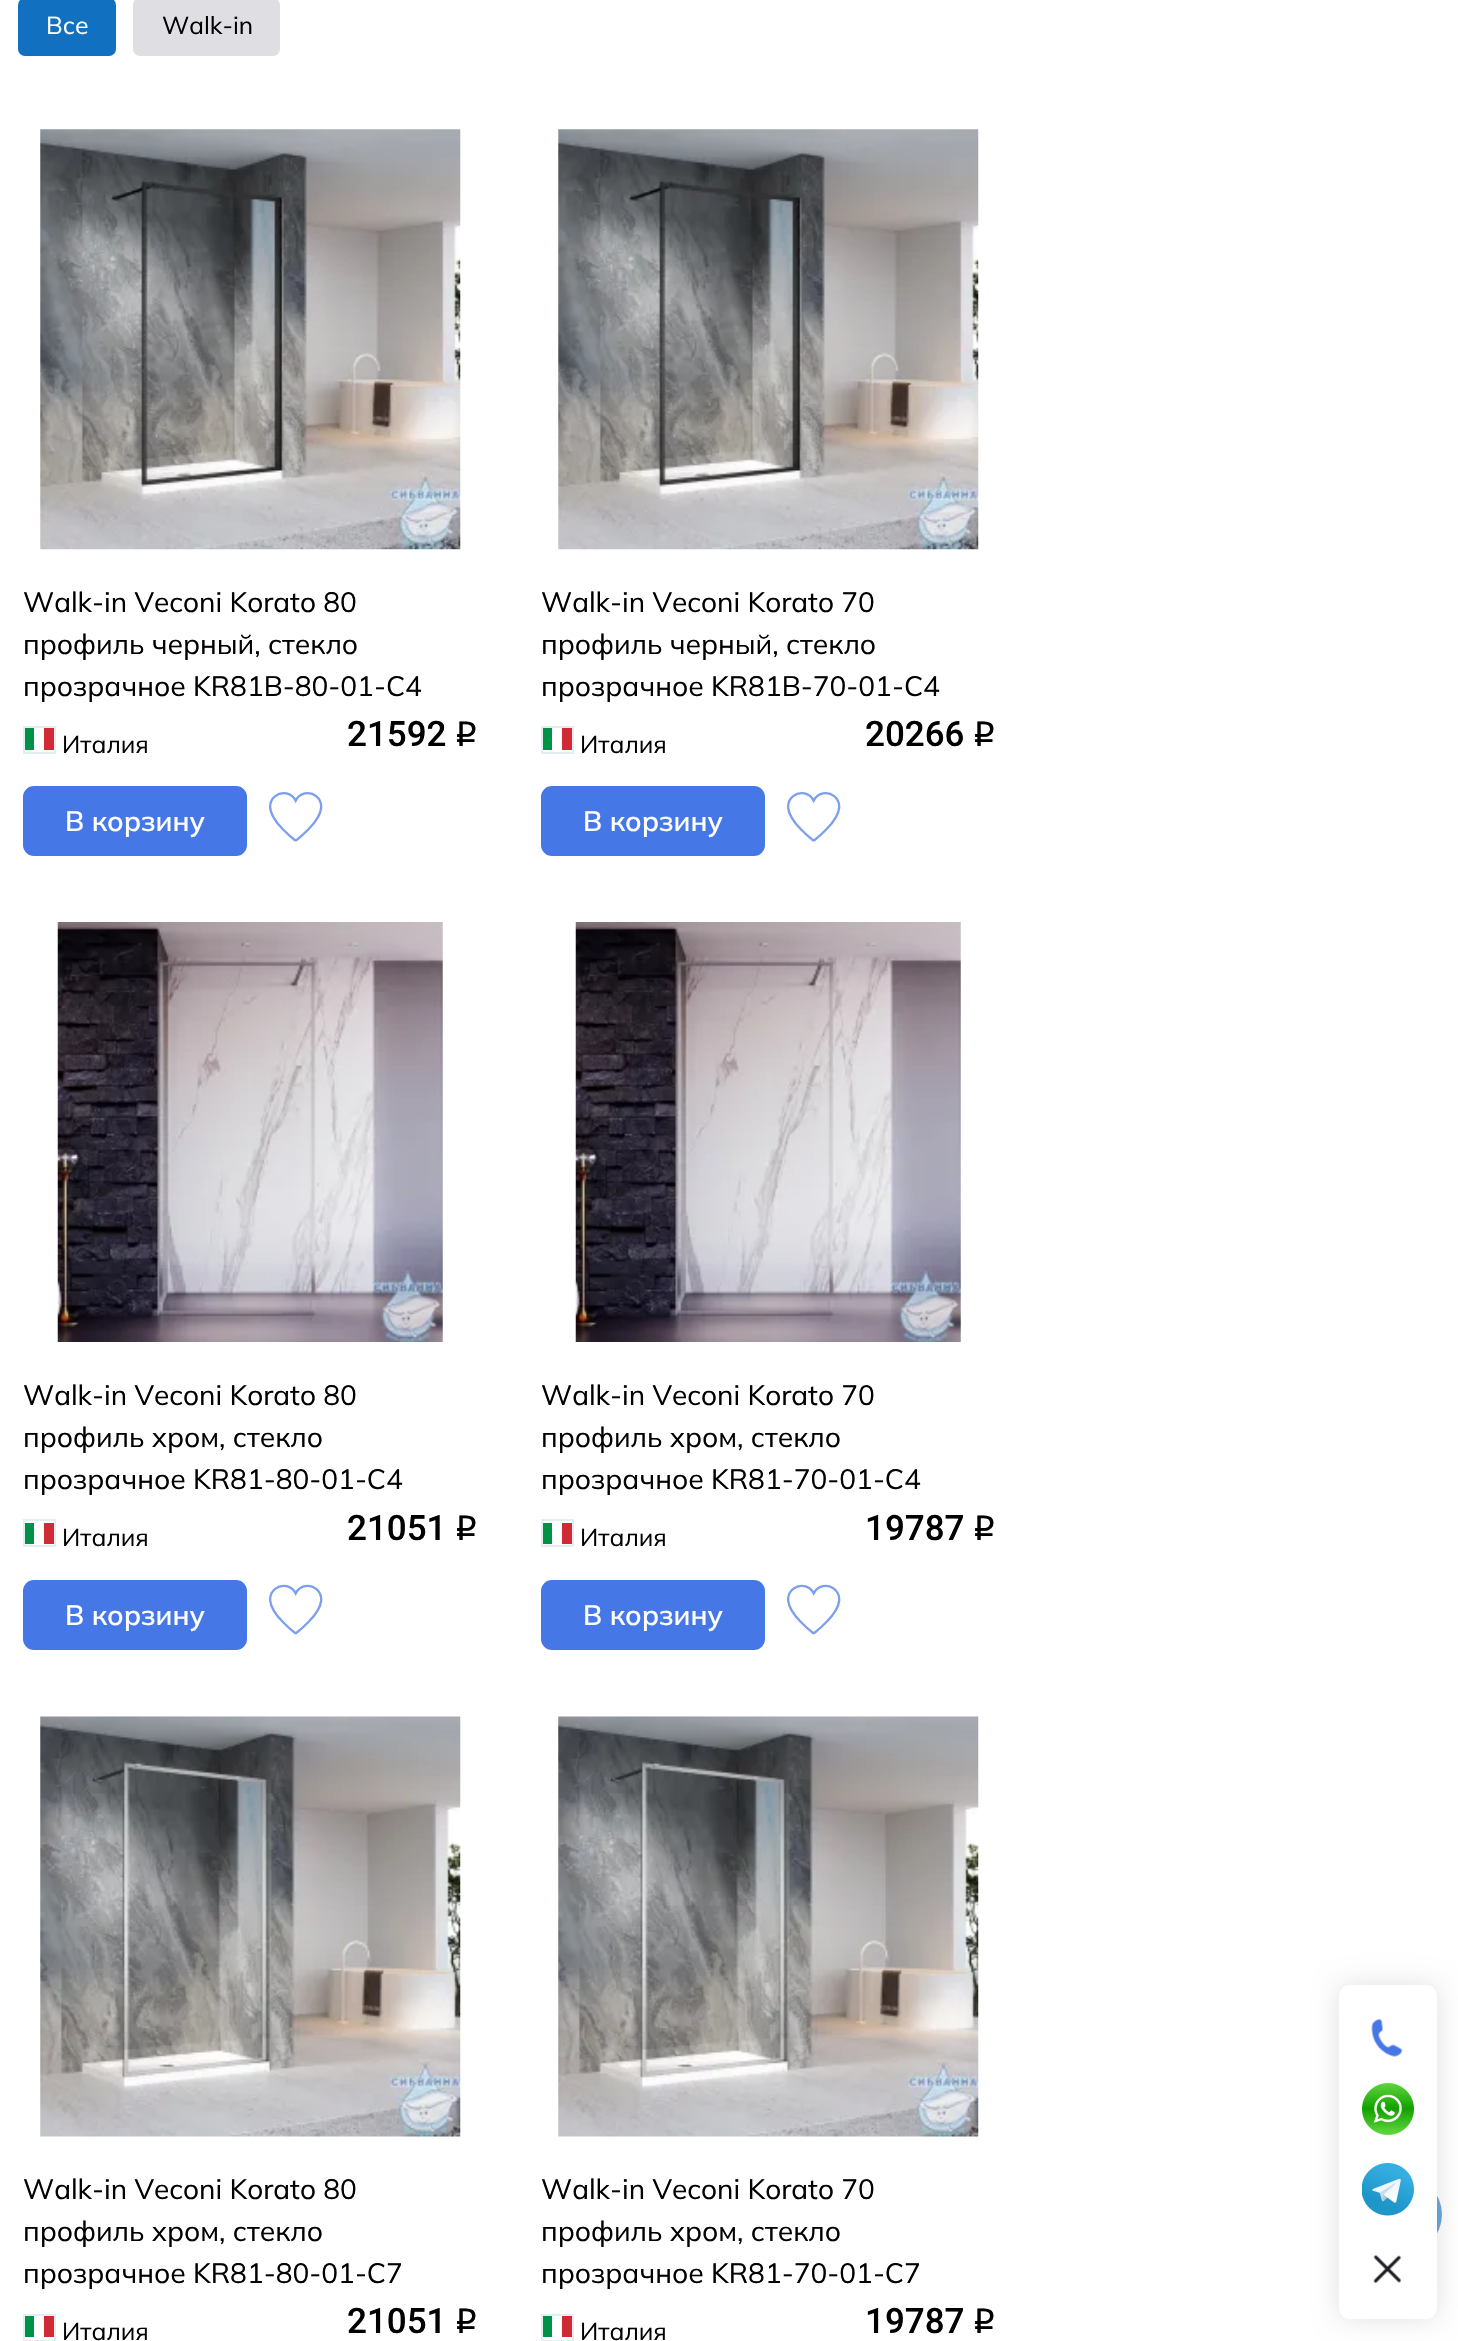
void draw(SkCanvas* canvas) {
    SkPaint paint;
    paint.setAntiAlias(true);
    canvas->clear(0xFFFFFFFF);
    paint.setColor(0xFF1171C0);
    canvas->drawRoundRect(SkRect::MakeXYWH(18, -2, 98, 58), 7, 7, paint);
    SkFont font1(fontMgr->matchFamilyStyle("Mulish", SkFontStyle::Normal()), 24.5f);
    font1.setSubpixel(true);
    paint.setColor(0xFFFFFFFF);
    canvas->drawString("Все", 46, 34, font1, paint);
    paint.setColor(0xFFDEDEE3);
    canvas->drawRoundRect(SkRect::MakeXYWH(133, -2, 147, 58), 7, 7, paint);
    paint.setColor(0xFF000000);
    canvas->drawString("Walk-in", 162, 34, font1, paint);
    canvas->drawImageRect(SkImages::DeferredFromEncodedData(SkData::MakeFromFileName("img1.png")), SkRect::MakeXYWH(40, 129, 421, 421), SkSamplingOptions());
    SkFont font2(fontMgr->matchFamilyStyle("Mulish", SkFontStyle::Normal()), 28);
    font2.setSubpixel(true);
    canvas->drawString("Walk-in Veconi Korato 80", 23, 612, font2, paint);
    canvas->drawString("профиль черный, стекло", 23, 654, font2, paint);
    canvas->drawString("прозрачное KR81B-80-01-C4", 23, 696, font2, paint);
    paint.setColor(0xFF009246);
    canvas->drawRect(SkRect::MakeXYWH(25, 728, 9, 22), paint);
    paint.setColor(0xFFCE2B37);
    canvas->drawRect(SkRect::MakeXYWH(44, 728, 10, 22), paint);
    paint.setStyle(SkPaint::kStroke_Style);
    paint.setStrokeWidth(2);
    paint.setColor(0xFFE4EEF2);
    canvas->drawRect(SkRect::MakeXYWH(24, 727, 31, 26), paint);
    paint.setStyle(SkPaint::kFill_Style);
    paint.setColor(0xFF000000);
    canvas->drawString("Италия", 62, 753, font1, paint);
    SkFont font3(fontMgr->matchFamilyStyle("Roboto", SkFontStyle(500, SkFontStyle::kNormal_Width, SkFontStyle::kUpright_Slant)), 35);
    font3.setSubpixel(true);
    canvas->drawString("21592", 347, 746, font3, paint);
    SkFont font4(fontMgr->matchFamilyStyle("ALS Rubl", SkFontStyle::Normal()), 35);
    font4.setSubpixel(true);
    canvas->drawString("q", 455, 746, font4, paint);
    paint.setColor(0xFF4577E7);
    canvas->drawRoundRect(SkRect::MakeXYWH(24, 787, 222, 68), 10, 10, paint);
    paint.setStyle(SkPaint::kStroke_Style);
    canvas->drawRoundRect(SkRect::MakeXYWH(24, 787, 222, 68), 10, 10, paint);
    SkFont font5(fontMgr->matchFamilyStyle("Mulish", SkFontStyle(600, SkFontStyle::kNormal_Width, SkFontStyle::kUpright_Slant)), 28);
    font5.setSubpixel(true);
    paint.setStyle(SkPaint::kFill_Style);
    paint.setColor(0xFFFFFFFF);
    canvas->drawString("В корзину", 65, 831, font5, paint);
    canvas->drawImageRect(SkImages::DeferredFromEncodedData(SkData::MakeFromFileName("img2.png")), SkRect::MakeXYWH(269, 792, 54, 50), SkSamplingOptions());
    canvas->drawImageRect(SkImages::DeferredFromEncodedData(SkData::MakeFromFileName("img3.png")), SkRect::MakeXYWH(558, 129, 421, 421), SkSamplingOptions());
    paint.setColor(0xFF000000);
    canvas->drawString("Walk-in Veconi Korato 70", 541, 612, font2, paint);
    canvas->drawString("профиль черный, стекло", 541, 654, font2, paint);
    canvas->drawString("прозрачное KR81B-70-01-C4", 541, 696, font2, paint);
    paint.setColor(0xFF009246);
    canvas->drawRect(SkRect::MakeXYWH(543, 728, 9, 22), paint);
    paint.setColor(0xFFCE2B37);
    canvas->drawRect(SkRect::MakeXYWH(562, 728, 10, 22), paint);
    paint.setStyle(SkPaint::kStroke_Style);
    paint.setColor(0xFFE4EEF2);
    canvas->drawRect(SkRect::MakeXYWH(542, 727, 31, 26), paint);
    paint.setStyle(SkPaint::kFill_Style);
    paint.setColor(0xFF000000);
    canvas->drawString("Италия", 580, 753, font1, paint);
    canvas->drawString("20266", 865, 746, font3, paint);
    canvas->drawString("q", 973, 746, font4, paint);
    paint.setColor(0xFF4577E7);
    canvas->drawRoundRect(SkRect::MakeXYWH(542, 787, 222, 68), 10, 10, paint);
    paint.setStyle(SkPaint::kStroke_Style);
    canvas->drawRoundRect(SkRect::MakeXYWH(542, 787, 222, 68), 10, 10, paint);
    paint.setStyle(SkPaint::kFill_Style);
    paint.setColor(0xFFFFFFFF);
    canvas->drawString("В корзину", 583, 831, font5, paint);
    canvas->drawImageRect(SkImages::DeferredFromEncodedData(SkData::MakeFromFileName("img2.png")), SkRect::MakeXYWH(787, 792, 54, 50), SkSamplingOptions());
    canvas->drawImageRect(SkImages::DeferredFromEncodedData(SkData::MakeFromFileName("img4.png")), SkRect::MakeXYWH(57, 922, 386, 420), SkSamplingOptions());
    paint.setColor(0xFF000000);
    canvas->drawString("Walk-in Veconi Korato 80", 23, 1405, font2, paint);
    canvas->drawString("профиль хром, стекло", 23, 1447, font2, paint);
    canvas->drawString("прозрачное KR81-80-01-C4", 23, 1489, font2, paint);
    paint.setColor(0xFF009246);
    canvas->drawRect(SkRect::MakeXYWH(25, 1523, 9, 21), paint);
    paint.setColor(0xFFCE2B37);
    canvas->drawRect(SkRect::MakeXYWH(44, 1523, 10, 21), paint);
    paint.setStyle(SkPaint::kStroke_Style);
    paint.setColor(0xFFE4EEF2);
    canvas->drawRect(SkRect::MakeXYWH(24, 1520, 31, 26), paint);
    paint.setStyle(SkPaint::kFill_Style);
    paint.setColor(0xFF000000);
    canvas->drawString("Италия", 62, 1546, font1, paint);
    canvas->drawString("21051", 347, 1540, font3, paint);
    canvas->drawString("q", 455, 1540, font4, paint);
    paint.setColor(0xFF4577E7);
    canvas->drawRoundRect(SkRect::MakeXYWH(24, 1581, 222, 68), 10, 10, paint);
    paint.setStyle(SkPaint::kStroke_Style);
    canvas->drawRoundRect(SkRect::MakeXYWH(24, 1581, 222, 68), 10, 10, paint);
    paint.setStyle(SkPaint::kFill_Style);
    paint.setColor(0xFFFFFFFF);
    canvas->drawString("В корзину", 65, 1625, font5, paint);
    canvas->drawImageRect(SkImages::DeferredFromEncodedData(SkData::MakeFromFileName("img5.png")), SkRect::MakeXYWH(269, 1584, 54, 51), SkSamplingOptions());
    canvas->drawImageRect(SkImages::DeferredFromEncodedData(SkData::MakeFromFileName("img4.png")), SkRect::MakeXYWH(575, 922, 386, 420), SkSamplingOptions());
    paint.setColor(0xFF000000);
    canvas->drawString("Walk-in Veconi Korato 70", 541, 1405, font2, paint);
    canvas->drawString("профиль хром, стекло", 541, 1447, font2, paint);
    canvas->drawString("прозрачное KR81-70-01-C4", 541, 1489, font2, paint);
    paint.setColor(0xFF009246);
    canvas->drawRect(SkRect::MakeXYWH(543, 1523, 9, 21), paint);
    paint.setColor(0xFFCE2B37);
    canvas->drawRect(SkRect::MakeXYWH(562, 1523, 10, 21), paint);
    paint.setStyle(SkPaint::kStroke_Style);
    paint.setColor(0xFFE4EEF2);
    canvas->drawRect(SkRect::MakeXYWH(542, 1520, 31, 26), paint);
    paint.setStyle(SkPaint::kFill_Style);
    paint.setColor(0xFF000000);
    canvas->drawString("Италия", 580, 1546, font1, paint);
    canvas->drawString("19787", 865, 1540, font3, paint);
    canvas->drawString("q", 973, 1540, font4, paint);
    paint.setColor(0xFF4577E7);
    canvas->drawRoundRect(SkRect::MakeXYWH(542, 1581, 222, 68), 10, 10, paint);
    paint.setStyle(SkPaint::kStroke_Style);
    canvas->drawRoundRect(SkRect::MakeXYWH(542, 1581, 222, 68), 10, 10, paint);
    paint.setStyle(SkPaint::kFill_Style);
    paint.setColor(0xFFFFFFFF);
    canvas->drawString("В корзину", 583, 1625, font5, paint);
    canvas->drawImageRect(SkImages::DeferredFromEncodedData(SkData::MakeFromFileName("img5.png")), SkRect::MakeXYWH(787, 1584, 54, 51), SkSamplingOptions());
    canvas->drawImageRect(SkImages::DeferredFromEncodedData(SkData::MakeFromFileName("img6.png")), SkRect::MakeXYWH(40, 1716, 421, 421), SkSamplingOptions());
    paint.setColor(0xFF000000);
    canvas->drawString("Walk-in Veconi Korato 80", 23, 2199, font2, paint);
    canvas->drawString("профиль хром, стекло", 23, 2241, font2, paint);
    canvas->drawString("прозрачное KR81-80-01-C7", 23, 2283, font2, paint);
    paint.setColor(0xFF009246);
    canvas->drawRect(SkRect::MakeXYWH(25, 2316, 9, 21), paint);
    paint.setColor(0xFFCE2B37);
    canvas->drawRect(SkRect::MakeXYWH(44, 2316, 10, 21), paint);
    paint.setStyle(SkPaint::kStroke_Style);
    paint.setColor(0xFFE4EEF2);
    canvas->drawRect(SkRect::MakeXYWH(24, 2315, 31, 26), paint);
    paint.setStyle(SkPaint::kFill_Style);
    paint.setColor(0xFF000000);
    canvas->drawString("Италия", 62, 2340, font1, paint);
    canvas->drawString("21051", 347, 2333, font3, paint);
    canvas->drawString("q", 455, 2333, font4, paint);
    canvas->drawImageRect(SkImages::DeferredFromEncodedData(SkData::MakeFromFileName("img7.png")), SkRect::MakeXYWH(558, 1716, 421, 421), SkSamplingOptions());
    canvas->drawString("Walk-in Veconi Korato 70", 541, 2199, font2, paint);
    canvas->drawString("профиль хром, стекло", 541, 2241, font2, paint);
    canvas->drawString("прозрачное KR81-70-01-C7", 541, 2283, font2, paint);
    paint.setColor(0xFF009246);
    canvas->drawRect(SkRect::MakeXYWH(543, 2316, 9, 21), paint);
    paint.setColor(0xFFCE2B37);
    canvas->drawRect(SkRect::MakeXYWH(562, 2316, 10, 21), paint);
    paint.setStyle(SkPaint::kStroke_Style);
    paint.setColor(0xFFE4EEF2);
    canvas->drawRect(SkRect::MakeXYWH(542, 2315, 31, 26), paint);
    paint.setStyle(SkPaint::kFill_Style);
    paint.setColor(0xFF000000);
    canvas->drawString("Италия", 580, 2340, font1, paint);
    canvas->drawString("19787", 865, 2333, font3, paint);
    canvas->drawString("q", 973, 2333, font4, paint);
    paint.setColor(0xFF6EA8DB);
    canvas->drawCircle(1402.5f, 2214.5f, 39.5f, paint);
    paint.setColor(0x1F000000);
    paint.setMaskFilter(SkMaskFilter::MakeBlur(kNormal_SkBlurStyle, 13));
    canvas->drawRoundRect(SkRect::MakeXYWH(1339, 1985, 98, 334), 11, 11, paint);
    paint.setMaskFilter(nullptr);
    paint.setColor(0xFFFFFFFF);
    canvas->drawRoundRect(SkRect::MakeXYWH(1339, 1985, 98, 334), 11, 11, paint);
    canvas->drawImageRect(SkImages::DeferredFromEncodedData(SkData::MakeFromFileName("img8.png")), SkRect::MakeXYWH(1371, 2019, 32, 38), SkSamplingOptions());
    canvas->drawImageRect(SkImages::DeferredFromEncodedData(SkData::MakeFromFileName("img9.png")), SkRect::MakeXYWH(1362, 2083, 52, 52), SkSamplingOptions());
    canvas->drawImageRect(SkImages::DeferredFromEncodedData(SkData::MakeFromFileName("img10.png")), SkRect::MakeXYWH(1362, 2163, 52, 53), SkSamplingOptions());
    canvas->drawImageRect(SkImages::DeferredFromEncodedData(SkData::MakeFromFileName("img11.png")), SkRect::MakeXYWH(1373, 2255, 29, 29), SkSamplingOptions());
}
